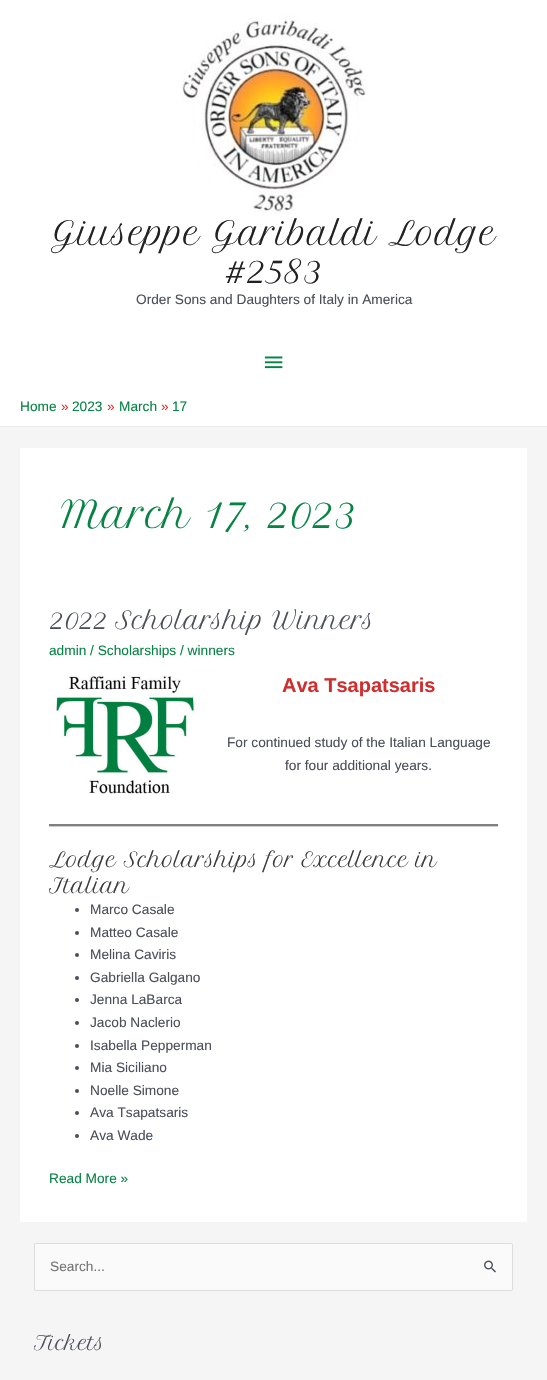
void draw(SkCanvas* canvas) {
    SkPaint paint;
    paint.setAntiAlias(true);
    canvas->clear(0xFFF5F5F5);
    paint.setColor(0xFFFFFFFF);
    canvas->drawRect(SkRect::MakeXYWH(0, 0, 547, 426), paint);
    canvas->drawImageRect(SkImages::DeferredFromEncodedData(SkData::MakeFromFileName("img1.png")), SkRect::MakeXYWH(182, 14, 184, 200), SkSamplingOptions());
    SkFont font1(fontMgr->matchFamilyStyle("Petit Formal Script", SkFontStyle::Normal()), 31.9f);
    font1.setSubpixel(true);
    paint.setColor(0xFF222222);
    canvas->drawString("Giuseppe Garibaldi Lodge", 51, 245, font1, paint);
    canvas->drawString("#2583", 225, 283, font1, paint);
    SkFont font2(fontMgr->matchFamilyStyle("Liberation Sans", SkFontStyle::Normal()), 13.7f);
    font2.setSubpixel(true);
    paint.setColor(0xFF4B4F58);
    canvas->drawString("Order Sons and Daughters of Italy in America", 136, 304, font2, paint);
    canvas->drawImageRect(SkImages::DeferredFromEncodedData(SkData::MakeFromFileName("img2.png")), SkRect::MakeXYWH(264, 356, 19, 13), SkSamplingOptions());
    paint.setColor(0xFFEAEAEA);
    canvas->drawRect(SkRect::MakeXYWH(0, 426, 547, 1), paint);
    paint.setColor(0xFF068444);
    canvas->drawString("Home", 20, 411, font2, paint);
    paint.setColor(0xFFDD3333);
    canvas->drawString("»", 61, 411, font2, paint);
    paint.setColor(0xFF068444);
    canvas->drawString("2023", 72, 411, font2, paint);
    paint.setColor(0xFFDD3333);
    canvas->drawString("»", 107, 411, font2, paint);
    paint.setColor(0xFF068444);
    canvas->drawString("March", 119, 411, font2, paint);
    paint.setColor(0xFFDD3333);
    canvas->drawString("»", 161, 411, font2, paint);
    paint.setColor(0xFF068444);
    canvas->drawString("17", 172, 411, font2, paint);
    paint.setColor(0xFFFFFFFF);
    canvas->drawRect(SkRect::MakeXYWH(20, 448, 507, 774), paint);
    SkFont font3(fontMgr->matchFamilyStyle("Petit Formal Script", SkFontStyle::Normal()), 36.5f);
    font3.setSubpixel(true);
    paint.setColor(0xFF068444);
    canvas->drawString("March 17, 2023", 61, 528, font3, paint);
    SkFont font4(fontMgr->matchFamilyStyle("Petit Formal Script", SkFontStyle::Normal()), 23.75f);
    font4.setSubpixel(true);
    paint.setColor(0xFF4B4F58);
    canvas->drawString("2022 Scholarship Winners", 49, 629, font4, paint);
    paint.setColor(0xFF068444);
    canvas->drawString("admin / Scholarships / winners", 49, 655, font2, paint);
    canvas->drawImageRect(SkImages::DeferredFromEncodedData(SkData::MakeFromFileName("img3.png")), SkRect::MakeXYWH(53, 675, 144, 119), SkSamplingOptions());
    SkFont font5(fontMgr->matchFamilyStyle("Liberation Sans", SkFontStyle::Bold()), 20);
    font5.setSubpixel(true);
    paint.setColor(0xFFCF2E2E);
    canvas->drawString("Ava Tsapatsaris", 282, 692, font5, paint);
    paint.setColor(0xFF4B4F58);
    canvas->drawString("For continued study of the Italian Language", 227, 747, font2, paint);
    canvas->drawString("for four additional years.", 285, 770, font2, paint);
    paint.setColor(0xFFCCCCCC);
    canvas->drawRect(SkRect::MakeXYWH(49, 826, 449, 1), paint);
    paint.setColor(0xFF808080);
    canvas->drawRect(SkRect::MakeXYWH(49, 824, 449, 2), paint);
    SkFont font6(fontMgr->matchFamilyStyle("Petit Formal Script", SkFontStyle::Normal()), 20);
    font6.setSubpixel(true);
    paint.setColor(0xFF3A3A3A);
    canvas->drawString("Lodge Scholarships for Excellence in", 49, 867, font6, paint);
    canvas->drawString("Italian", 49, 893, font6, paint);
    paint.setColor(0xFF4B4F58);
    canvas->drawCircle(77, 910, 2, paint);
    canvas->drawString("Marco Casale", 90, 914, font2, paint);
    canvas->drawCircle(77, 933, 2, paint);
    canvas->drawString("Matteo Casale", 90, 937, font2, paint);
    canvas->drawCircle(77, 955, 2, paint);
    canvas->drawString("Melina Caviris", 90, 959, font2, paint);
    canvas->drawCircle(77, 978, 2, paint);
    canvas->drawString("Gabriella Galgano", 90, 982, font2, paint);
    canvas->drawCircle(77, 1000, 2, paint);
    canvas->drawString("Jenna LaBarca", 90, 1004, font2, paint);
    canvas->drawCircle(77, 1023, 2, paint);
    canvas->drawString("Jacob Naclerio", 90, 1027, font2, paint);
    canvas->drawCircle(77, 1046, 2, paint);
    canvas->drawString("Isabella Pepperman", 90, 1050, font2, paint);
    canvas->drawCircle(77, 1068, 2, paint);
    canvas->drawString("Mia Siciliano", 90, 1072, font2, paint);
    canvas->drawCircle(77, 1091, 2, paint);
    canvas->drawString("Noelle Simone", 90, 1095, font2, paint);
    canvas->drawCircle(77, 1113, 2, paint);
    canvas->drawString("Ava Tsapatsaris", 90, 1117, font2, paint);
    canvas->drawCircle(77, 1136, 2, paint);
    canvas->drawString("Ava Wade", 90, 1140, font2, paint);
    paint.setColor(0xFF068444);
    canvas->drawString("Read More »", 49, 1183, font2, paint);
    paint.setColor(0xFFFAFAFA);
    canvas->drawRoundRect(SkRect::MakeXYWH(34.5f, 1243.5f, 478, 47), 1.5f, 1.5f, paint);
    paint.setStyle(SkPaint::kStroke_Style);
    paint.setStrokeWidth(1);
    paint.setColor(0xFFDDDDDD);
    canvas->drawRoundRect(SkRect::MakeXYWH(34.5f, 1243.5f, 478, 47), 1.5f, 1.5f, paint);
    paint.setStyle(SkPaint::kFill_Style);
    paint.setColor(0xFF757575);
    canvas->drawString("Search...", 50, 1271, font2, paint);
    canvas->drawImageRect(SkImages::DeferredFromEncodedData(SkData::MakeFromFileName("img4.png")), SkRect::MakeXYWH(484, 1260, 12, 13), SkSamplingOptions());
    SkFont font7(fontMgr->matchFamilyStyle("Petit Formal Script", SkFontStyle::Normal()), 19);
    font7.setSubpixel(true);
    paint.setColor(0xFF4B4F58);
    canvas->drawString("Tickets", 34, 1350, font7, paint);
}
